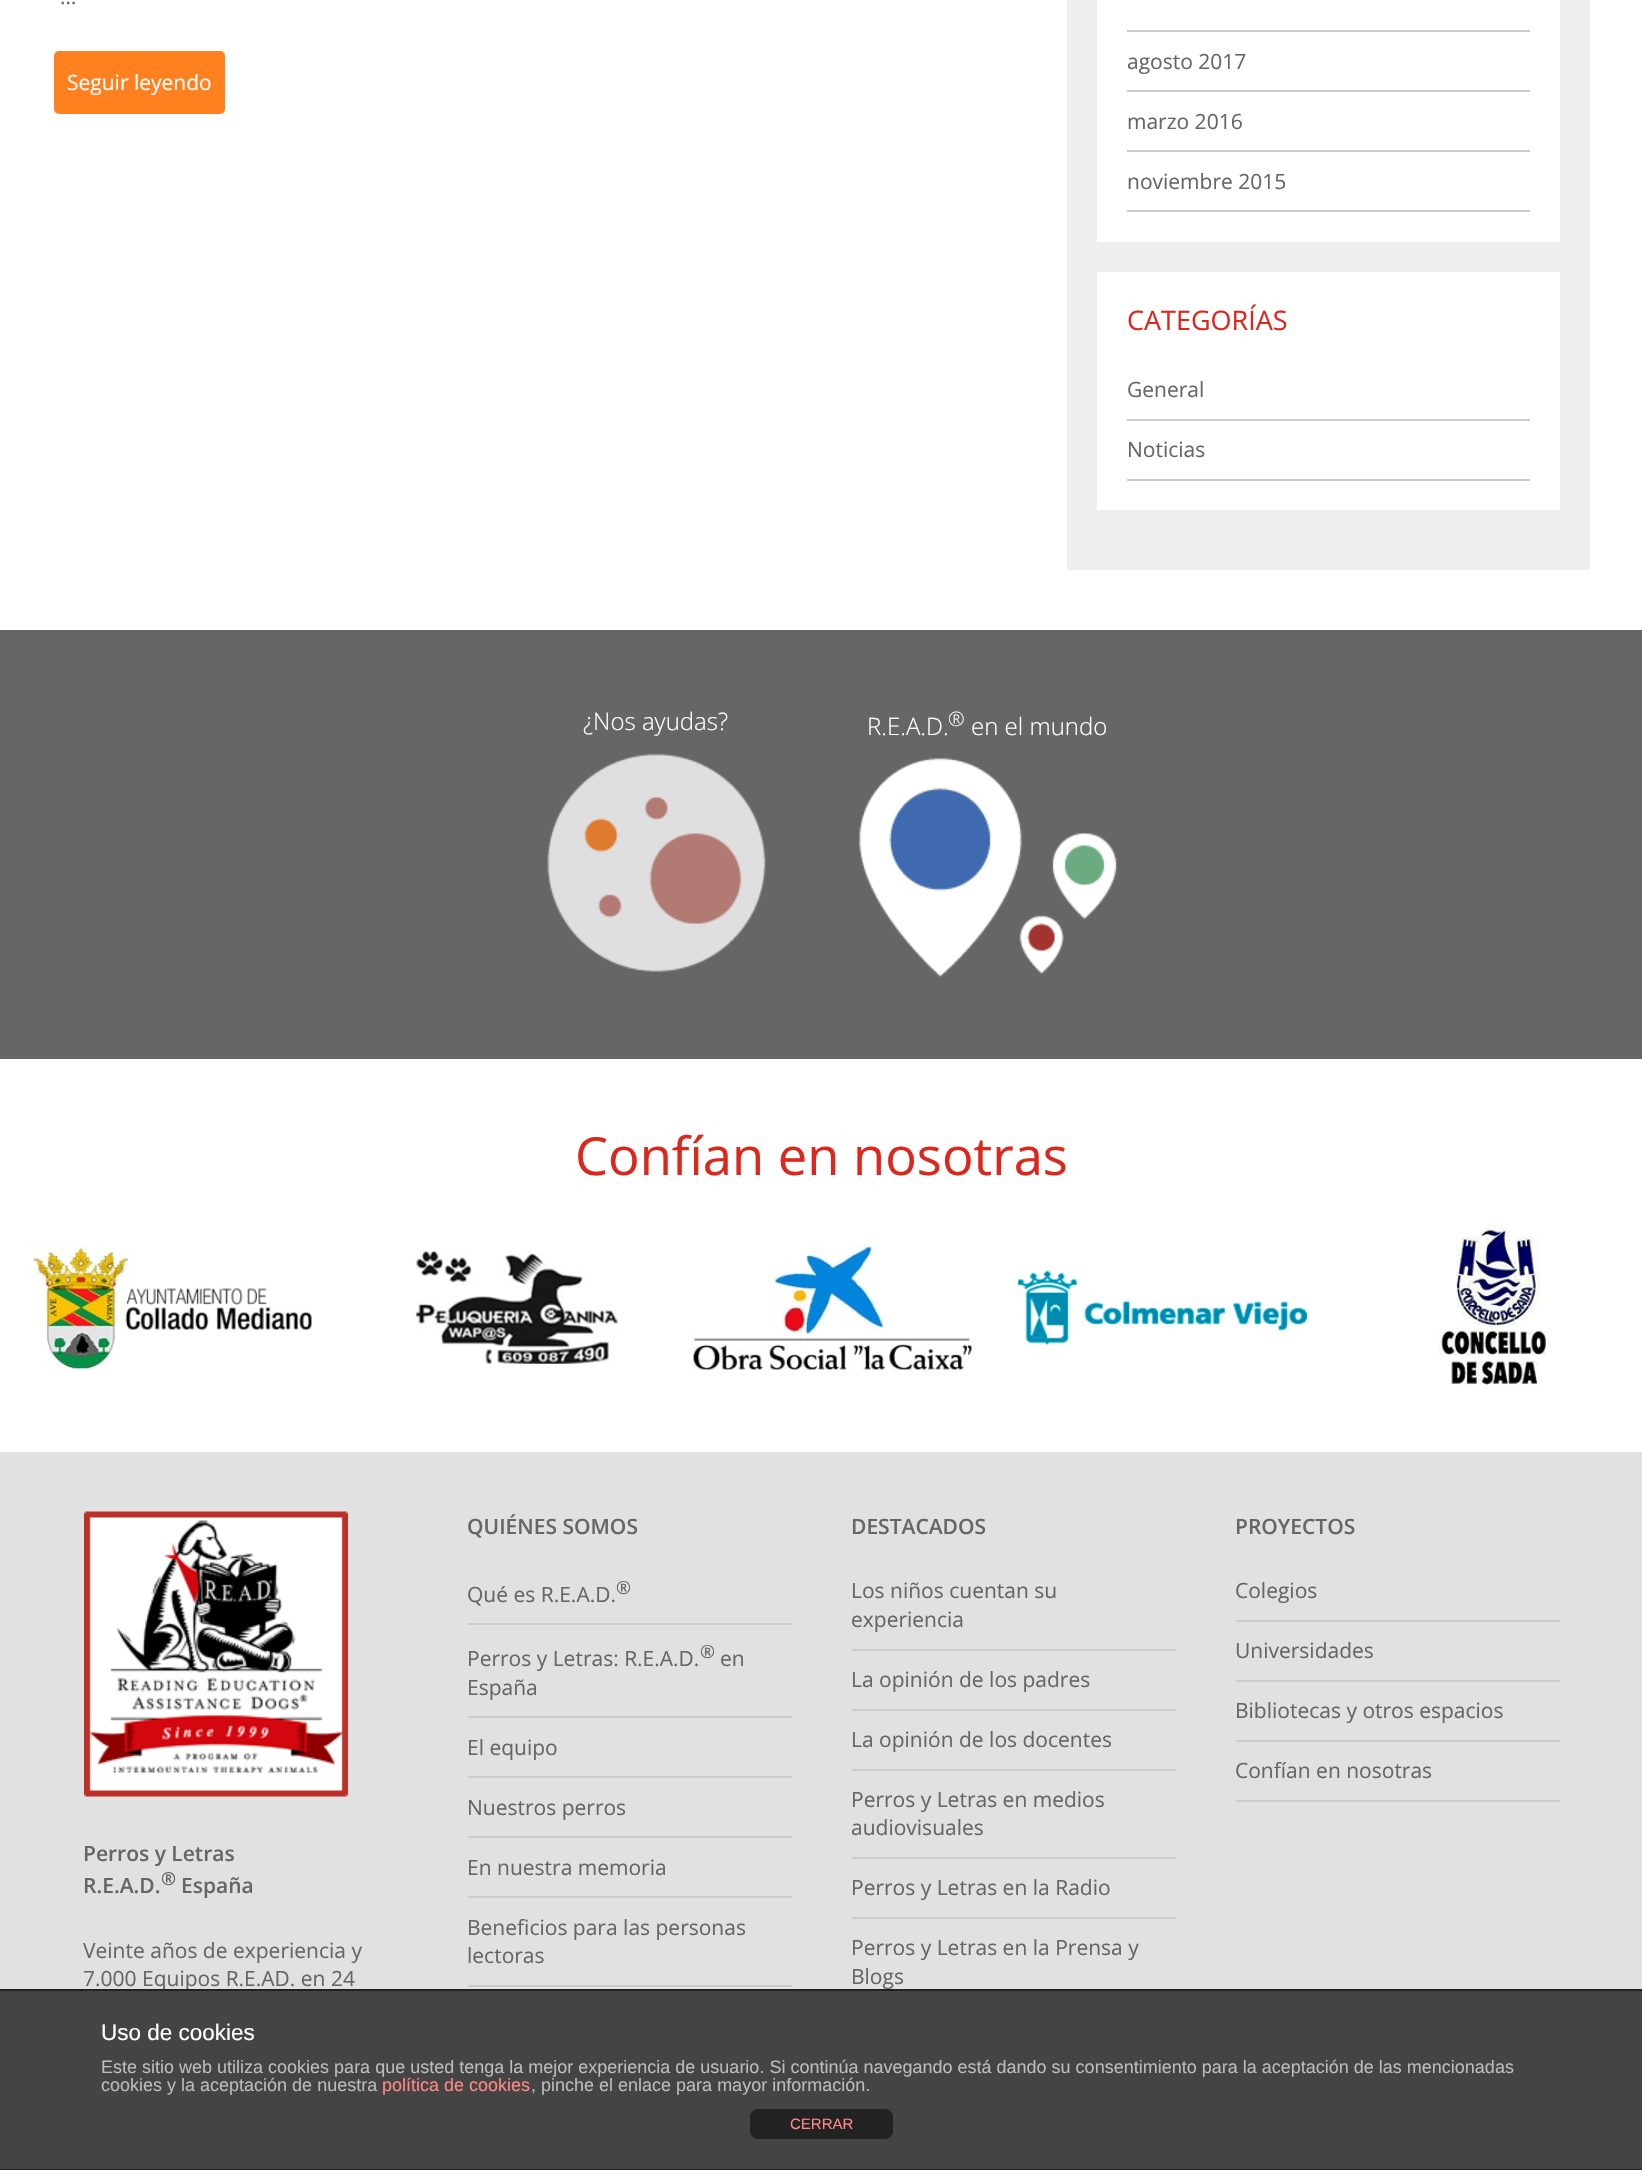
void draw(SkCanvas* canvas) {
    SkPaint paint;
    paint.setAntiAlias(true);
    canvas->clear(0xFFFFFFFF);
    SkFont font1(fontMgr->matchFamilyStyle("Open Sans", SkFontStyle::Normal()), 21);
    font1.setSubpixel(true);
    paint.setColor(0xFF666666);
    canvas->drawString("…", 60, 4, font1, paint);
    paint.setColor(0xFFFF801E);
    canvas->drawRoundRect(SkRect::MakeXYWH(54, 51, 171, 63), 5, 5, paint);
    paint.setColor(0xFFFFFFFF);
    canvas->drawString("Seguir leyendo", 67, 90, font1, paint);
    paint.setColor(0xFFEEEEEE);
    canvas->drawRect(SkRect::MakeXYWH(1067, 0, 523, 570), paint);
    paint.setColor(0xFFFFFFFF);
    canvas->drawRect(SkRect::MakeXYWH(1097, 0, 463, 242), paint);
    paint.setColor(0xFFCCCCCC);
    canvas->drawRect(SkRect::MakeXYWH(1127, 30, 403, 2), paint);
    canvas->drawRect(SkRect::MakeXYWH(1127, 90, 403, 2), paint);
    paint.setColor(0xFF666666);
    canvas->drawString("agosto 2017", 1127, 69, font1, paint);
    paint.setColor(0xFFCCCCCC);
    canvas->drawRect(SkRect::MakeXYWH(1127, 150, 403, 2), paint);
    paint.setColor(0xFF666666);
    canvas->drawString("marzo 2016", 1127, 129, font1, paint);
    paint.setColor(0xFFCCCCCC);
    canvas->drawRect(SkRect::MakeXYWH(1127, 210, 403, 2), paint);
    paint.setColor(0xFF666666);
    canvas->drawString("noviembre 2015", 1127, 189, font1, paint);
    paint.setColor(0xFFFFFFFF);
    canvas->drawRect(SkRect::MakeXYWH(1097, 272, 463, 238), paint);
    SkFont font2(fontMgr->matchFamilyStyle("Open Sans", SkFontStyle::Normal()), 27);
    font2.setSubpixel(true);
    paint.setColor(0xFFDB271C);
    canvas->drawString("CATEGORÍAS", 1127, 330, font2, paint);
    paint.setColor(0xFFCCCCCC);
    canvas->drawRect(SkRect::MakeXYWH(1127, 419, 403, 2), paint);
    paint.setColor(0xFF666666);
    canvas->drawString("General", 1127, 397, font1, paint);
    paint.setColor(0xFFCCCCCC);
    canvas->drawRect(SkRect::MakeXYWH(1127, 479, 403, 2), paint);
    paint.setColor(0xFF666666);
    canvas->drawString("Noticias", 1127, 457, font1, paint);
    canvas->drawRect(SkRect::MakeXYWH(0, 630, 1642, 429), paint);
    SkFont font3(fontMgr->matchFamilyStyle("Open Sans", SkFontStyle(300, SkFontStyle::kNormal_Width, SkFontStyle::kUpright_Slant)), 24);
    font3.setSubpixel(true);
    paint.setColor(0xFFFFFFFF);
    canvas->drawString("¿Nos ayudas?", 583, 730, font3, paint);
    canvas->drawImageRect(SkImages::DeferredFromEncodedData(SkData::MakeFromFileName("img1.png")), SkRect::MakeXYWH(547, 753, 219, 219), SkSamplingOptions());
    canvas->drawString("R.E.A.D.", 867, 735, font3, paint);
    SkFont font4(fontMgr->matchFamilyStyle("Open Sans", SkFontStyle(300, SkFontStyle::kNormal_Width, SkFontStyle::kUpright_Slant)), 20);
    font4.setSubpixel(true);
    canvas->drawString("®", 948, 726, font4, paint);
    canvas->drawString("en el mundo", 971, 735, font3, paint);
    canvas->drawImageRect(SkImages::DeferredFromEncodedData(SkData::MakeFromFileName("img2.png")), SkRect::MakeXYWH(859, 758, 258, 219), SkSamplingOptions());
    SkFont font5(fontMgr->matchFamilyStyle("Open Sans", SkFontStyle::Normal()), 52.5f);
    font5.setSubpixel(true);
    paint.setColor(0xFFDB271C);
    canvas->drawString("Confían en nosotras", 575, 1175, font5, paint);
    canvas->drawImageRect(SkImages::DeferredFromEncodedData(SkData::MakeFromFileName("img3.png")), SkRect::MakeXYWH(25, 1243, 287, 128), SkSamplingOptions());
    canvas->drawImageRect(SkImages::DeferredFromEncodedData(SkData::MakeFromFileName("img4.png")), SkRect::MakeXYWH(413, 1251, 211, 114), SkSamplingOptions());
    canvas->drawImageRect(SkImages::DeferredFromEncodedData(SkData::MakeFromFileName("img5.png")), SkRect::MakeXYWH(692, 1243, 284, 133), SkSamplingOptions());
    canvas->drawImageRect(SkImages::DeferredFromEncodedData(SkData::MakeFromFileName("img6.png")), SkRect::MakeXYWH(1017, 1270, 292, 76), SkSamplingOptions());
    canvas->drawImageRect(SkImages::DeferredFromEncodedData(SkData::MakeFromFileName("img7.png")), SkRect::MakeXYWH(1438, 1225, 113, 161), SkSamplingOptions());
    paint.setColor(0xFFE1E1E1);
    canvas->drawRect(SkRect::MakeXYWH(0, 1452, 1642, 537), paint);
    SkFont font6(fontMgr->matchFamilyStyle("Open Sans", SkFontStyle(600, SkFontStyle::kNormal_Width, SkFontStyle::kUpright_Slant)), 21);
    font6.setSubpixel(true);
    paint.setColor(0xFF666666);
    canvas->drawString("QUIÉNES SOMOS", 467, 1534, font6, paint);
    paint.setColor(0xFFCCCCCC);
    canvas->drawRect(SkRect::MakeXYWH(468, 1623, 324, 2), paint);
    paint.setColor(0xFF666666);
    canvas->drawString("Qué es R.E.A.D.", 467, 1602, font1, paint);
    SkFont font7(fontMgr->matchFamilyStyle("Open Sans", SkFontStyle::Normal()), 18);
    font7.setSubpixel(true);
    canvas->drawString("®", 616, 1594, font7, paint);
    paint.setColor(0xFFCCCCCC);
    canvas->drawRect(SkRect::MakeXYWH(468, 1716, 324, 2), paint);
    paint.setColor(0xFF666666);
    canvas->drawString("Perros y Letras: R.E.A.D.", 467, 1666, font1, paint);
    canvas->drawString("®", 700, 1658, font7, paint);
    canvas->drawString("en", 720, 1666, font1, paint);
    canvas->drawString("España", 467, 1695, font1, paint);
    paint.setColor(0xFFCCCCCC);
    canvas->drawRect(SkRect::MakeXYWH(468, 1776, 324, 2), paint);
    paint.setColor(0xFF666666);
    canvas->drawString("El equipo", 467, 1755, font1, paint);
    paint.setColor(0xFFCCCCCC);
    canvas->drawRect(SkRect::MakeXYWH(468, 1836, 324, 2), paint);
    paint.setColor(0xFF666666);
    canvas->drawString("Nuestros perros", 467, 1815, font1, paint);
    paint.setColor(0xFFCCCCCC);
    canvas->drawRect(SkRect::MakeXYWH(468, 1896, 324, 2), paint);
    paint.setColor(0xFF666666);
    canvas->drawString("En nuestra memoria", 467, 1875, font1, paint);
    paint.setColor(0xFFCCCCCC);
    canvas->drawRect(SkRect::MakeXYWH(468, 1985, 324, 2), paint);
    paint.setColor(0xFF666666);
    canvas->drawString("Beneficios para las personas", 467, 1935, font1, paint);
    canvas->drawString("lectoras", 467, 1963, font1, paint);
    canvas->drawString("DESTACADOS", 851, 1534, font6, paint);
    paint.setColor(0xFFCCCCCC);
    canvas->drawRect(SkRect::MakeXYWH(852, 1649, 324, 2), paint);
    paint.setColor(0xFF666666);
    canvas->drawString("Los niños cuentan su", 851, 1598, font1, paint);
    canvas->drawString("experiencia", 851, 1627, font1, paint);
    paint.setColor(0xFFCCCCCC);
    canvas->drawRect(SkRect::MakeXYWH(852, 1709, 324, 2), paint);
    paint.setColor(0xFF666666);
    canvas->drawString("La opinión de los padres", 851, 1687, font1, paint);
    paint.setColor(0xFFCCCCCC);
    canvas->drawRect(SkRect::MakeXYWH(852, 1769, 324, 2), paint);
    paint.setColor(0xFF666666);
    canvas->drawString("La opinión de los docentes", 851, 1747, font1, paint);
    paint.setColor(0xFFCCCCCC);
    canvas->drawRect(SkRect::MakeXYWH(852, 1857, 324, 2), paint);
    paint.setColor(0xFF666666);
    canvas->drawString("Perros y Letras en medios", 851, 1807, font1, paint);
    canvas->drawString("audiovisuales", 851, 1835, font1, paint);
    paint.setColor(0xFFCCCCCC);
    canvas->drawRect(SkRect::MakeXYWH(852, 1917, 324, 2), paint);
    paint.setColor(0xFF666666);
    canvas->drawString("Perros y Letras en la Radio", 851, 1895, font1, paint);
    canvas->drawString("Perros y Letras en la Prensa y", 851, 1955, font1, paint);
    canvas->drawString("Blogs", 851, 1984, font1, paint);
    canvas->drawString("PROYECTOS", 1235, 1534, font6, paint);
    paint.setColor(0xFFCCCCCC);
    canvas->drawRect(SkRect::MakeXYWH(1236, 1620, 324, 2), paint);
    paint.setColor(0xFF666666);
    canvas->drawString("Colegios", 1235, 1598, font1, paint);
    paint.setColor(0xFFCCCCCC);
    canvas->drawRect(SkRect::MakeXYWH(1236, 1680, 324, 2), paint);
    paint.setColor(0xFF666666);
    canvas->drawString("Universidades", 1235, 1658, font1, paint);
    paint.setColor(0xFFCCCCCC);
    canvas->drawRect(SkRect::MakeXYWH(1236, 1740, 324, 2), paint);
    paint.setColor(0xFF666666);
    canvas->drawString("Bibliotecas y otros espacios", 1235, 1718, font1, paint);
    paint.setColor(0xFFCCCCCC);
    canvas->drawRect(SkRect::MakeXYWH(1236, 1800, 324, 2), paint);
    paint.setColor(0xFF666666);
    canvas->drawString("Confían en nosotras", 1235, 1778, font1, paint);
    canvas->drawImageRect(SkImages::DeferredFromEncodedData(SkData::MakeFromFileName("img8.png")), SkRect::MakeXYWH(84, 1511, 264, 286), SkSamplingOptions());
    canvas->drawString("Perros y Letras", 83, 1861, font6, paint);
    canvas->drawString("R.E.A.D.", 83, 1893, font6, paint);
    SkFont font8(fontMgr->matchFamilyStyle("Open Sans", SkFontStyle(600, SkFontStyle::kNormal_Width, SkFontStyle::kUpright_Slant)), 18);
    font8.setSubpixel(true);
    canvas->drawString("®", 161, 1885, font8, paint);
    canvas->drawString("España", 181, 1893, font6, paint);
    canvas->drawString("Veinte años de experiencia y", 83, 1958, font1, paint);
    canvas->drawString("7.000 Equipos R.E.AD. en 24", 83, 1986, font1, paint);
    paint.setColor(0xFF444444);
    canvas->drawRect(SkRect::MakeXYWH(0, 1991, 1642, 178), paint);
    paint.setColor(0xFF222222);
    canvas->drawRect(SkRect::MakeXYWH(0, 1989, 1642, 2), paint);
    canvas->drawRect(SkRect::MakeXYWH(0, 2169, 1642, 1), paint);
    SkFont font9(fontMgr->matchFamilyStyle("Liberation Sans", SkFontStyle::Normal()), 22.5f);
    font9.setSubpixel(true);
    paint.setColor(0xFFFFFFFF);
    canvas->drawString("Uso de cookies", 101, 2040, font9, paint);
    SkFont font10(fontMgr->matchFamilyStyle("Liberation Sans", SkFontStyle::Normal()), 18);
    font10.setSubpixel(true);
    paint.setColor(0xFFBBBBBB);
    canvas->drawString("Este sitio web utiliza cookies para que usted tenga la mejor experiencia de usuario. Si continúa navegando está dando su consentimiento para la aceptación de las mencionadas", 101, 2073, font10, paint);
    canvas->drawString("cookies y la aceptación de nuestra", 101, 2091, font10, paint);
    paint.setColor(0xFFFF8888);
    canvas->drawString("política de cookies", 382, 2091, font10, paint);
    paint.setColor(0xFFBBBBBB);
    canvas->drawString(", pinche el enlace para mayor información.", 531, 2091, font10, paint);
    paint.setColor(0xFF222222);
    canvas->drawRoundRect(SkRect::MakeXYWH(750, 2109, 143, 30), 8, 8, paint);
    SkFont font11(fontMgr->matchFamilyStyle("Liberation Sans", SkFontStyle::Normal()), 15);
    font11.setSubpixel(true);
    paint.setColor(0xFFFF8888);
    canvas->drawString("CERRAR", 790, 2129, font11, paint);
}
